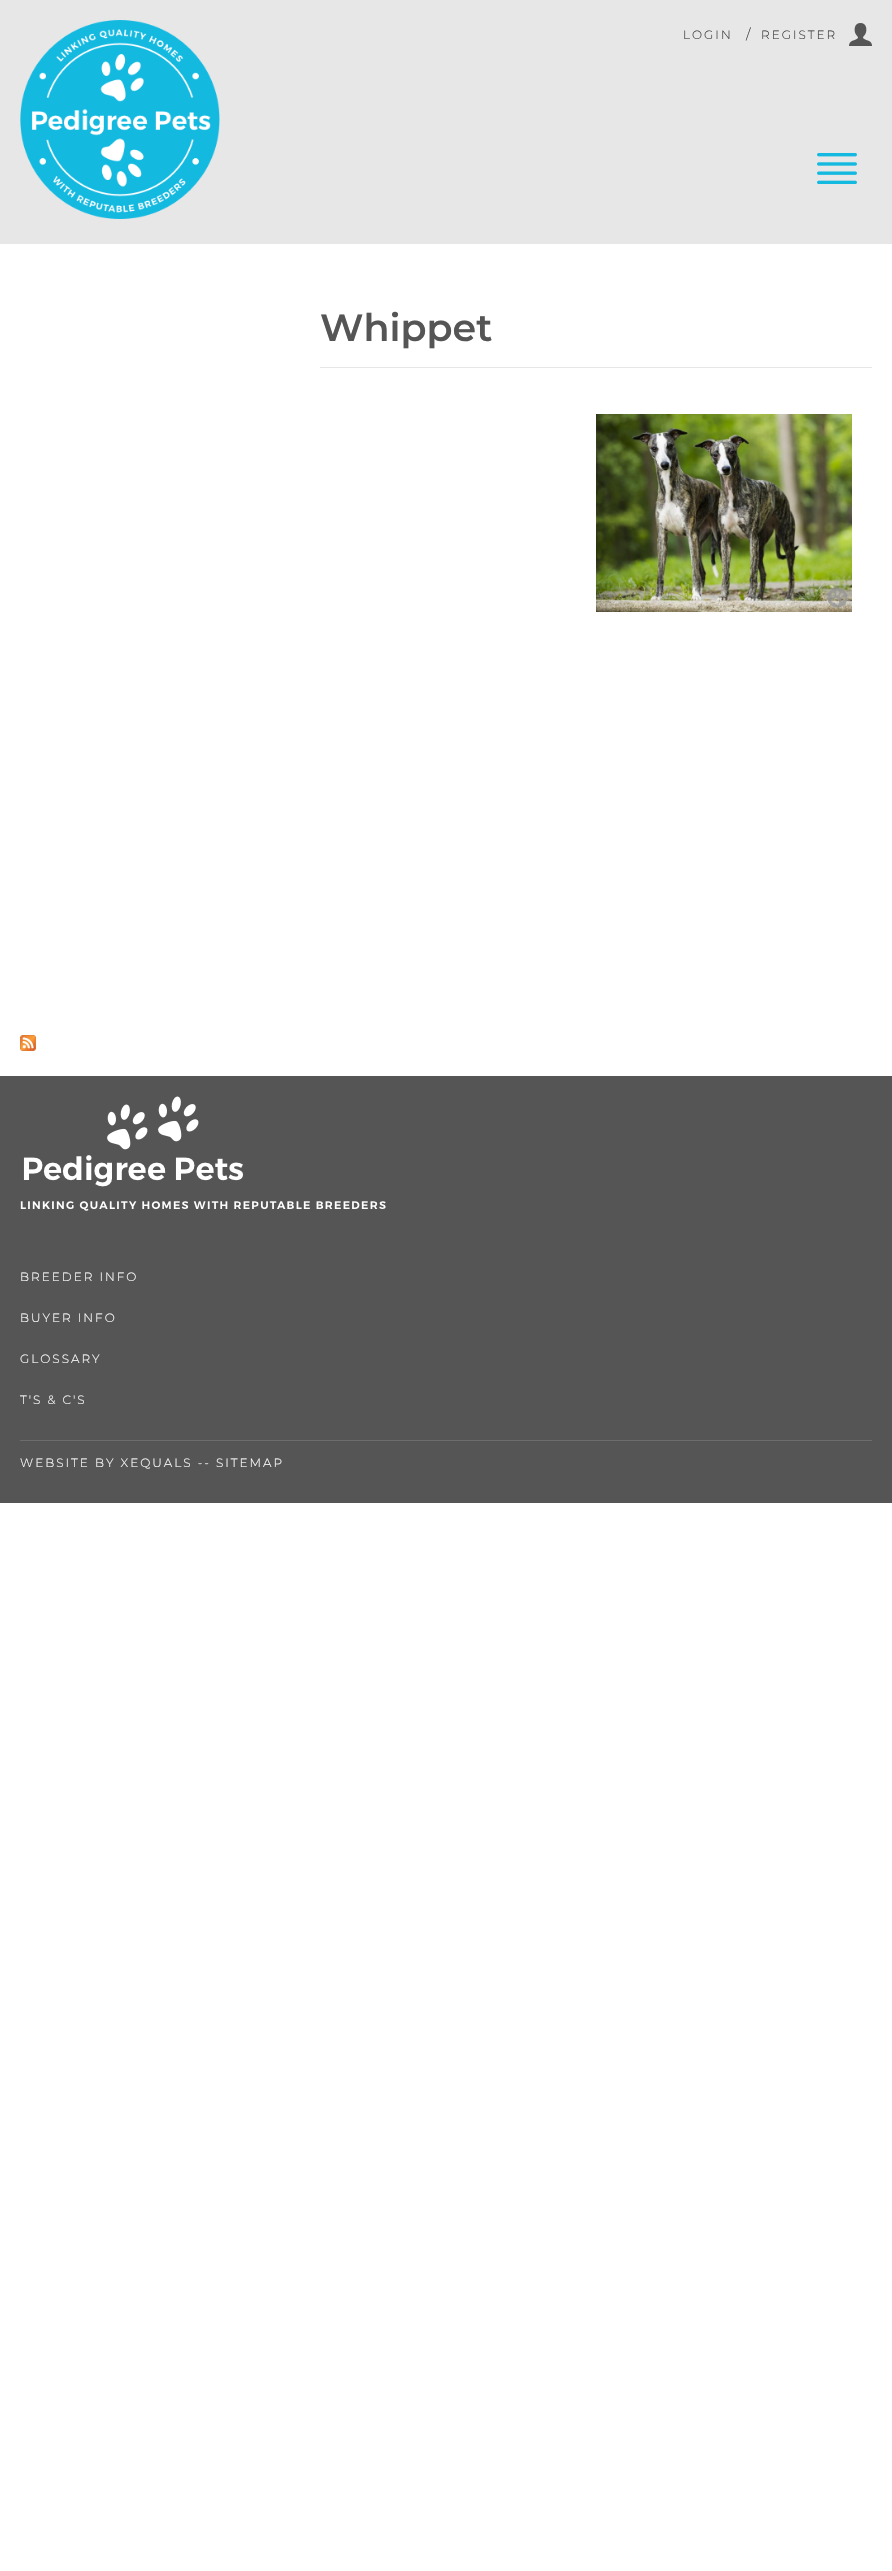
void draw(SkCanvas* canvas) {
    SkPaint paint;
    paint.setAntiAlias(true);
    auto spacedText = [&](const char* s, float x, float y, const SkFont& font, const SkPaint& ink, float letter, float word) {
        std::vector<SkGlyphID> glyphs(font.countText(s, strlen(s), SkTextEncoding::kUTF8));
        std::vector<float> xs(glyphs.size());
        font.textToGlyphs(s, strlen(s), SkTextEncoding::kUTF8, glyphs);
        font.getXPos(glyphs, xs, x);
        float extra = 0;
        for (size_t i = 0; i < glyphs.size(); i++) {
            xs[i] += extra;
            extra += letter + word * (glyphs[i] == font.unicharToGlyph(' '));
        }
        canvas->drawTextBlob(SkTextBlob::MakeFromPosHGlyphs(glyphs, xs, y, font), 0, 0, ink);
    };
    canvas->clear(0xFFFFFFFF);
    paint.setColor(0xFFE8E7E7);
    canvas->drawRect(SkRect::MakeXYWH(0, 0, 892, 244), paint);
    canvas->drawImageRect(SkImages::DeferredFromEncodedData(SkData::MakeFromFileName("img1.png")), SkRect::MakeXYWH(20, 20, 200, 199), SkSamplingOptions());
    SkFont font1(fontMgr->matchFamilyStyle("Montserrat", SkFontStyle(300, SkFontStyle::kNormal_Width, SkFontStyle::kUpright_Slant)), 12);
    font1.setSubpixel(true);
    paint.setColor(0xFF3A3A3A);
    spacedText("LOGIN", 683, 39, font1, paint, 2, 0);
    SkFont font2(fontMgr->matchFamilyStyle("Montserrat", SkFontStyle(300, SkFontStyle::kNormal_Width, SkFontStyle::kUpright_Slant)), 14);
    font2.setSubpixel(true);
    canvas->drawString("/", 746, 39, font2, paint);
    spacedText("REGISTER", 761, 39, font1, paint, 2, 0);
    canvas->drawImageRect(SkImages::DeferredFromEncodedData(SkData::MakeFromFileName("img2.png")), SkRect::MakeXYWH(849, 23, 23, 23), SkSamplingOptions());
    canvas->drawImageRect(SkImages::DeferredFromEncodedData(SkData::MakeFromFileName("img3.png")), SkRect::MakeXYWH(817, 153, 40, 31), SkSamplingOptions());
    paint.setColor(0xFFE8E7E7);
    canvas->drawRect(SkRect::MakeXYWH(320, 367, 552, 1), paint);
    SkFont font3(fontMgr->matchFamilyStyle("Montserrat", SkFontStyle(600, SkFontStyle::kNormal_Width, SkFontStyle::kUpright_Slant)), 38);
    font3.setSubpixel(true);
    paint.setColor(0xFF555555);
    canvas->drawString("Whippet", 320, 341, font3, paint);
    canvas->drawImageRect(SkImages::DeferredFromEncodedData(SkData::MakeFromFileName("img4.png")), SkRect::MakeXYWH(596, 414, 256, 198), SkSamplingOptions());
    canvas->drawImageRect(SkImages::DeferredFromEncodedData(SkData::MakeFromFileName("img5.png")), SkRect::MakeXYWH(20, 1035, 16, 16), SkSamplingOptions());
    canvas->drawRect(SkRect::MakeXYWH(0, 1076, 892, 427), paint);
    canvas->drawImageRect(SkImages::DeferredFromEncodedData(SkData::MakeFromFileName("img6.png")), SkRect::MakeXYWH(20, 1096, 366, 115), SkSamplingOptions());
    paint.setColor(0xFFFFFFFF);
    spacedText("BREEDER INFO", 20, 1281, font1, paint, 2, 0);
    spacedText("BUYER INFO", 20, 1322, font1, paint, 2, 0);
    spacedText("GLOSSARY", 20, 1363, font1, paint, 2, 0);
    spacedText("T'S & C'S", 20, 1404, font1, paint, 2, 0);
    paint.setColor(0xFF6C6C6C);
    canvas->drawRect(SkRect::MakeXYWH(20, 1440, 852, 1), paint);
    paint.setColor(0xFFFFFFFF);
    spacedText("WEBSITE BY XEQUALS -- SITEMAP", 20, 1467, font1, paint, 2, 0);
}
